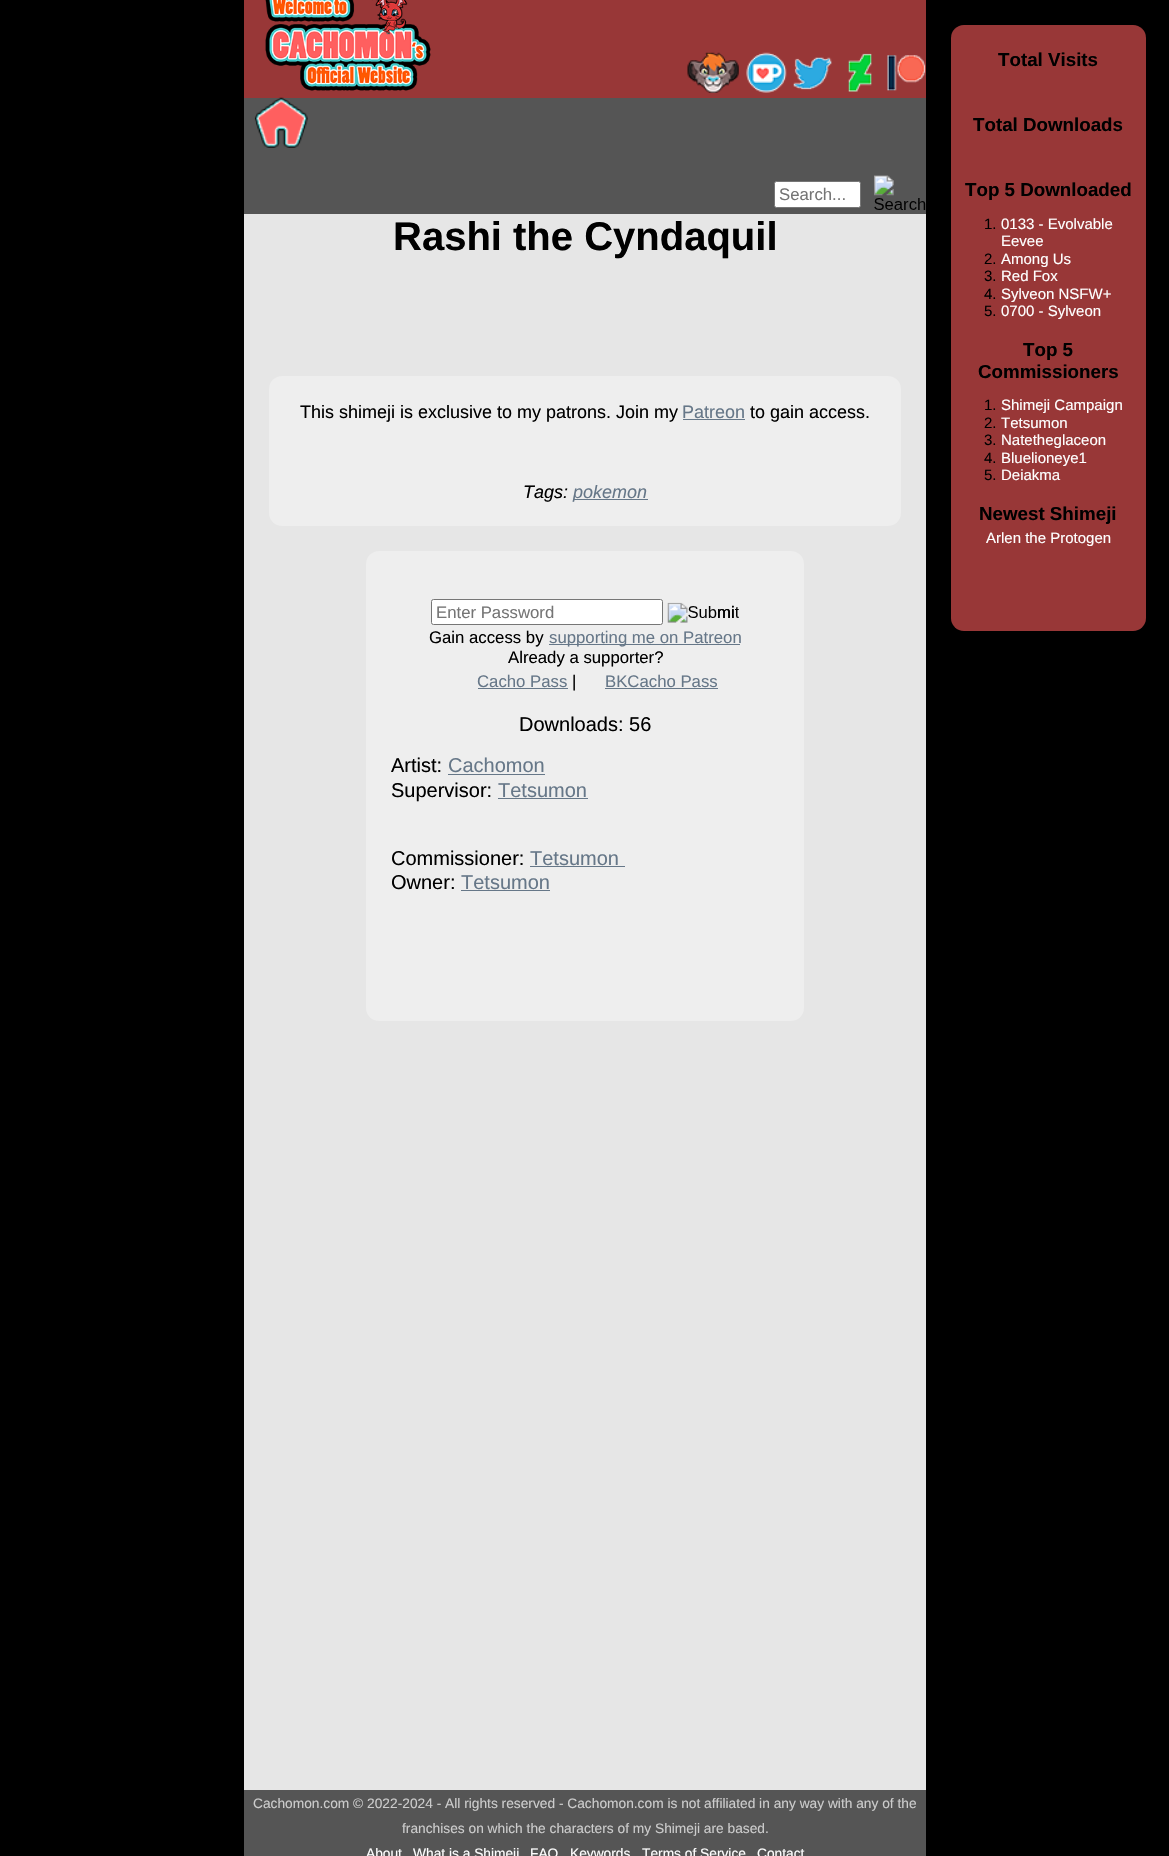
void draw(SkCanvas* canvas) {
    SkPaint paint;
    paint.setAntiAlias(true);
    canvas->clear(0xFFE6E6E6);
    paint.setColor(0xFF000000);
    canvas->drawRect(SkRect::MakeXYWH(0, 0, 244, 1856), paint);
    paint.setColor(0xFF983737);
    canvas->drawRect(SkRect::MakeXYWH(244, 0, 682, 98), paint);
    canvas->drawImageRect(SkImages::DeferredFromEncodedData(SkData::MakeFromFileName("img1.png")), SkRect::MakeXYWH(265, 0, 166, 91), SkSamplingOptions());
    canvas->drawImageRect(SkImages::DeferredFromEncodedData(SkData::MakeFromFileName("img2.png")), SkRect::MakeXYWH(687, 52, 52, 41), SkSamplingOptions());
    canvas->drawImageRect(SkImages::DeferredFromEncodedData(SkData::MakeFromFileName("img3.png")), SkRect::MakeXYWH(746, 52, 41, 41), SkSamplingOptions());
    canvas->drawImageRect(SkImages::DeferredFromEncodedData(SkData::MakeFromFileName("img4.png")), SkRect::MakeXYWH(793, 57, 39, 33), SkSamplingOptions());
    canvas->drawImageRect(SkImages::DeferredFromEncodedData(SkData::MakeFromFileName("img5.png")), SkRect::MakeXYWH(848, 53, 24, 39), SkSamplingOptions());
    canvas->drawImageRect(SkImages::DeferredFromEncodedData(SkData::MakeFromFileName("img6.png")), SkRect::MakeXYWH(887, 55, 39, 36), SkSamplingOptions());
    paint.setColor(0xFF555555);
    canvas->drawRect(SkRect::MakeXYWH(244, 98, 682, 116), paint);
    canvas->drawImageRect(SkImages::DeferredFromEncodedData(SkData::MakeFromFileName("img7.png")), SkRect::MakeXYWH(254, 97, 54, 51), SkSamplingOptions());
    paint.setColor(0xFFFFFFFF);
    canvas->drawRoundRect(SkRect::MakeXYWH(774.5f, 181.5f, 86, 26), 2, 2, paint);
    paint.setStyle(SkPaint::kStroke_Style);
    paint.setStrokeWidth(1);
    paint.setColor(0xFF767676);
    canvas->drawRoundRect(SkRect::MakeXYWH(774.5f, 181.5f, 86, 26), 2, 2, paint);
    SkFont font1(fontMgr->matchFamilyStyle("Liberation Sans", SkFontStyle::Normal()), 16.75f);
    font1.setSubpixel(true);
    paint.setStyle(SkPaint::kFill_Style);
    paint.setColor(0xFF757575);
    canvas->drawString("Search...", 779, 200, font1, paint);
    canvas->drawImageRect(SkImages::DeferredFromEncodedData(SkData::MakeFromFileName("img8.png")), SkRect::MakeXYWH(874, 175, 52, 35), SkSamplingOptions());
    SkFont font2(fontMgr->matchFamilyStyle("Liberation Sans", SkFontStyle::Bold()), 40);
    font2.setSubpixel(true);
    paint.setColor(0xFF000000);
    canvas->drawString("Rashi the Cyndaquil", 393, 250, font2, paint);
    paint.setColor(0xFFEEEEEE);
    canvas->drawRoundRect(SkRect::MakeXYWH(269, 376, 632, 150), 13, 13, paint);
    SkFont font3(fontMgr->matchFamilyStyle("Liberation Sans", SkFontStyle::Normal()), 18);
    font3.setSubpixel(true);
    paint.setColor(0xFF000000);
    canvas->drawString("This shimeji is exclusive to my patrons. Join my", 300, 418, font3, paint);
    paint.setColor(0xFF667788);
    canvas->drawString("Patreon", 682, 418, font3, paint);
    canvas->drawRect(SkRect::MakeXYWH(683, 419, 62, 1), paint);
    paint.setColor(0xFF000000);
    canvas->drawString("to gain access.", 750, 418, font3, paint);
    SkFont font4(fontMgr->matchFamilyStyle("Liberation Sans", SkFontStyle::Italic()), 18);
    font4.setSubpixel(true);
    canvas->drawString("Tags:", 523, 498, font4, paint);
    paint.setColor(0xFF667788);
    canvas->drawRect(SkRect::MakeXYWH(573, 499, 75, 1), paint);
    canvas->drawString("pokemon", 573, 498, font4, paint);
    paint.setColor(0xFFEEEEEE);
    canvas->drawRoundRect(SkRect::MakeXYWH(366, 551, 438, 470), 13, 13, paint);
    paint.setColor(0xFFFFFFFF);
    canvas->drawRoundRect(SkRect::MakeXYWH(431.5f, 599.5f, 231, 25), 2, 2, paint);
    paint.setStyle(SkPaint::kStroke_Style);
    paint.setColor(0xFF767676);
    canvas->drawRoundRect(SkRect::MakeXYWH(431.5f, 599.5f, 231, 25), 2, 2, paint);
    paint.setStyle(SkPaint::kFill_Style);
    paint.setColor(0xFF757575);
    canvas->drawString("Enter Password", 436, 618, font1, paint);
    canvas->drawImageRect(SkImages::DeferredFromEncodedData(SkData::MakeFromFileName("img9.png")), SkRect::MakeXYWH(667, 602, 72, 21), SkSamplingOptions());
    paint.setColor(0xFF000000);
    canvas->drawString("mi", 717, 618, font1, paint);
    canvas->drawString("Gain access by", 429, 643, font1, paint);
    paint.setColor(0xFF667788);
    canvas->drawRect(SkRect::MakeXYWH(549, 644, 191, 1), paint);
    canvas->drawString("supporting me on Patreon", 549, 643, font1, paint);
    paint.setColor(0xFF000000);
    canvas->drawString("Already a supporter?", 508, 663, font1, paint);
    paint.setColor(0xFF667788);
    canvas->drawString("Cacho Pass", 477, 687, font1, paint);
    canvas->drawRect(SkRect::MakeXYWH(478, 688, 90, 1), paint);
    paint.setColor(0xFF000000);
    canvas->drawString("|", 572, 687, font1, paint);
    paint.setColor(0xFF667788);
    canvas->drawString("BKCacho Pass", 605, 687, font1, paint);
    canvas->drawRect(SkRect::MakeXYWH(605, 688, 113, 1), paint);
    SkFont font5(fontMgr->matchFamilyStyle("Liberation Sans", SkFontStyle::Normal()), 20);
    font5.setSubpixel(true);
    paint.setColor(0xFF000000);
    canvas->drawString("Downloads: 56", 519, 731, font5, paint);
    canvas->drawString("Artist:", 391, 772, font5, paint);
    paint.setColor(0xFF667788);
    canvas->drawString("Cachomon", 448, 772, font5, paint);
    canvas->drawRect(SkRect::MakeXYWH(448, 774, 97, 1), paint);
    paint.setColor(0xFF000000);
    canvas->drawString("Supervisor:", 391, 797, font5, paint);
    paint.setColor(0xFF667788);
    canvas->drawString("Tetsumon", 498, 797, font5, paint);
    canvas->drawRect(SkRect::MakeXYWH(498, 798, 90, 1), paint);
    paint.setColor(0xFF000000);
    canvas->drawString("Commissioner:", 391, 865, font5, paint);
    paint.setColor(0xFF667788);
    canvas->drawString("Tetsumon", 530, 865, font5, paint);
    canvas->drawRect(SkRect::MakeXYWH(530, 866, 95, 1), paint);
    paint.setColor(0xFF000000);
    canvas->drawString("Owner:", 391, 889, font5, paint);
    paint.setColor(0xFF667788);
    canvas->drawString("Tetsumon", 461, 889, font5, paint);
    canvas->drawRect(SkRect::MakeXYWH(461, 890, 89, 1), paint);
    paint.setColor(0xFF000000);
    canvas->drawRect(SkRect::MakeXYWH(926, 0, 243, 1856), paint);
    paint.setColor(0xFF983737);
    canvas->drawRoundRect(SkRect::MakeXYWH(951, 25, 195, 606), 13, 13, paint);
    SkFont font6(fontMgr->matchFamilyStyle("Liberation Sans", SkFontStyle::Bold()), 18.75f);
    font6.setSubpixel(true);
    paint.setColor(0xFF000000);
    canvas->drawString("Total Visits", 998, 66, font6, paint);
    canvas->drawString("Total Downloads", 973, 131, font6, paint);
    canvas->drawString("Top 5 Downloaded", 965, 196, font6, paint);
    SkFont font7(fontMgr->matchFamilyStyle("Liberation Sans", SkFontStyle::Normal()), 15);
    font7.setSubpixel(true);
    canvas->drawString("1.", 984, 229, font7, paint);
    paint.setColor(0xFFFFFFFF);
    canvas->drawString("0133 - Evolvable", 1001, 229, font7, paint);
    canvas->drawString("Eevee", 1001, 246, font7, paint);
    paint.setColor(0xFF000000);
    canvas->drawString("2.", 984, 264, font7, paint);
    paint.setColor(0xFFFFFFFF);
    canvas->drawString("Among Us", 1001, 264, font7, paint);
    paint.setColor(0xFF000000);
    canvas->drawString("3.", 984, 281, font7, paint);
    paint.setColor(0xFFFFFFFF);
    canvas->drawString("Red Fox", 1001, 281, font7, paint);
    paint.setColor(0xFF000000);
    canvas->drawString("4.", 984, 299, font7, paint);
    paint.setColor(0xFFFFFFFF);
    canvas->drawString("Sylveon NSFW+", 1001, 299, font7, paint);
    paint.setColor(0xFF000000);
    canvas->drawString("5.", 984, 316, font7, paint);
    paint.setColor(0xFFFFFFFF);
    canvas->drawString("0700 - Sylveon", 1001, 316, font7, paint);
    paint.setColor(0xFF000000);
    canvas->drawString("Top 5", 1023, 356, font6, paint);
    canvas->drawString("Commissioners", 978, 378, font6, paint);
    canvas->drawString("1.", 984, 410, font7, paint);
    paint.setColor(0xFFFFFFFF);
    canvas->drawString("Shimeji Campaign", 1001, 410, font7, paint);
    paint.setColor(0xFF000000);
    canvas->drawString("2.", 984, 428, font7, paint);
    paint.setColor(0xFFFFFFFF);
    canvas->drawString("Tetsumon", 1001, 428, font7, paint);
    paint.setColor(0xFF000000);
    canvas->drawString("3.", 984, 445, font7, paint);
    paint.setColor(0xFFFFFFFF);
    canvas->drawString("Natetheglaceon", 1001, 445, font7, paint);
    paint.setColor(0xFF000000);
    canvas->drawString("4.", 984, 463, font7, paint);
    paint.setColor(0xFFFFFFFF);
    canvas->drawString("Bluelioneye1", 1001, 463, font7, paint);
    paint.setColor(0xFF000000);
    canvas->drawString("5.", 984, 480, font7, paint);
    paint.setColor(0xFFFFFFFF);
    canvas->drawString("Deiakma", 1001, 480, font7, paint);
    paint.setColor(0xFF000000);
    canvas->drawString("Newest Shimeji", 979, 520, font6, paint);
    paint.setColor(0xFFFFFFFF);
    canvas->drawString("Arlen the Protogen", 986, 543, font7, paint);
    paint.setColor(0xFF555555);
    canvas->drawRect(SkRect::MakeXYWH(244, 1790, 682, 66), paint);
    SkFont font8(fontMgr->matchFamilyStyle("Liberation Sans", SkFontStyle::Normal()), 13.75f);
    font8.setSubpixel(true);
    paint.setColor(0xFFCCCCCC);
    canvas->drawString("Cachomon.com © 2022-2024 - All rights reserved - Cachomon.com is not affiliated in any way with any of the", 253, 1808, font8, paint);
    canvas->drawString("franchises on which the characters of my Shimeji are based.", 402, 1833, font8, paint);
    paint.setColor(0xFFFFFFFF);
    canvas->drawString("About", 366, 1858, font8, paint);
    canvas->drawString("What is a Shimeji", 413, 1858, font8, paint);
    canvas->drawString("FAQ", 530, 1858, font8, paint);
    canvas->drawString("Keywords", 570, 1858, font8, paint);
    canvas->drawString("Terms of Service", 642, 1858, font8, paint);
    canvas->drawString("Contact", 757, 1858, font8, paint);
}
